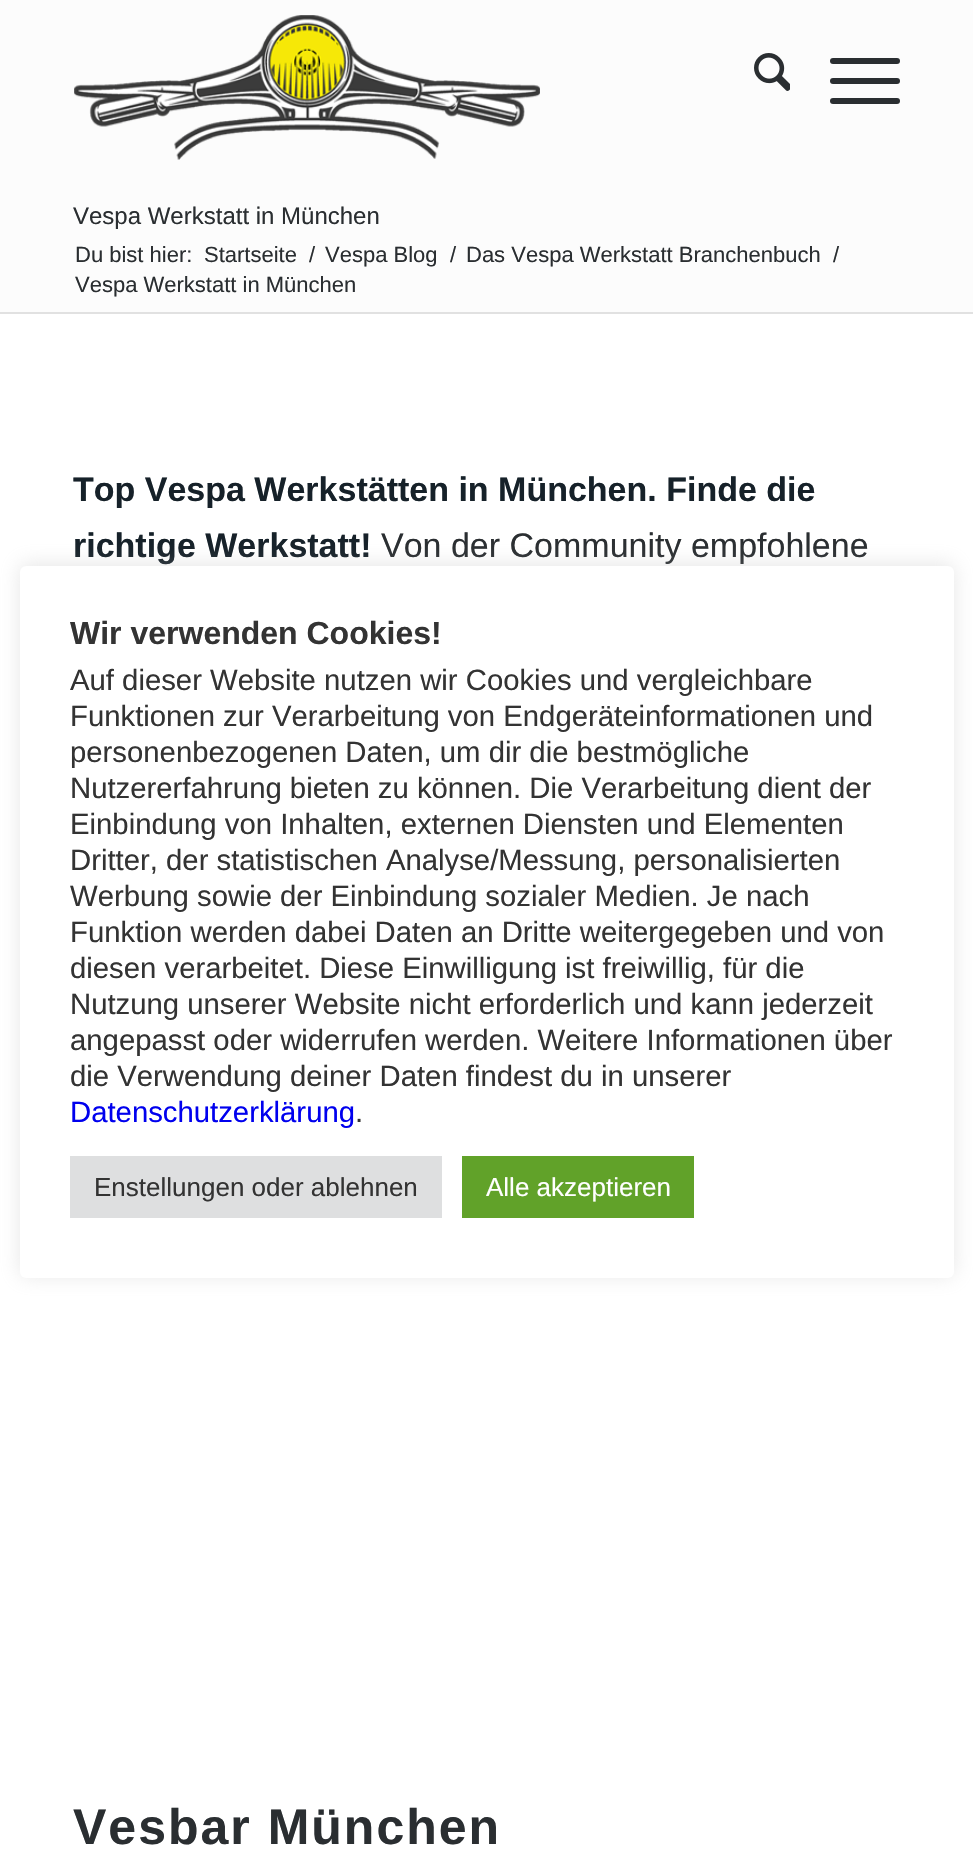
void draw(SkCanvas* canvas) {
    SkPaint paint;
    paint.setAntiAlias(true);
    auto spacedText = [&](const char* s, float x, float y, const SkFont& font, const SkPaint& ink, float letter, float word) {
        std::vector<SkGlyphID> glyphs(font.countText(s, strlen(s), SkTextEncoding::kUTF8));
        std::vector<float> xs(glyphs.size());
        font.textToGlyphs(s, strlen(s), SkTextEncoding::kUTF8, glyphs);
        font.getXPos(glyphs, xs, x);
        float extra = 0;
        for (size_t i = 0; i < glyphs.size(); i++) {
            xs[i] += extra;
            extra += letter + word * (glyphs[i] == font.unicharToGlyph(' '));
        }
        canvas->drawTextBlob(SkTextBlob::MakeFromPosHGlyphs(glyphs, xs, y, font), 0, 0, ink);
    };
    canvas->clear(0xFFFCFCFC);
    canvas->drawImageRect(SkImages::DeferredFromEncodedData(SkData::MakeFromFileName("img1.png")), SkRect::MakeXYWH(74, 15, 466, 145), SkSamplingOptions());
    canvas->drawImageRect(SkImages::DeferredFromEncodedData(SkData::MakeFromFileName("img2.png")), SkRect::MakeXYWH(754, 53, 36, 38), SkSamplingOptions());
    paint.setColor(0xFF2A2E31);
    canvas->drawRoundRect(SkRect::MakeXYWH(830, 78, 70, 6), 3, 3, paint);
    canvas->drawRoundRect(SkRect::MakeXYWH(830, 58, 70, 6), 3, 3, paint);
    canvas->drawRoundRect(SkRect::MakeXYWH(830, 98, 70, 6), 3, 3, paint);
    SkFont font1(fontMgr->matchFamilyStyle("Liberation Sans", SkFontStyle::Normal()), 24);
    font1.setSubpixel(true);
    canvas->drawString("Vespa Werkstatt in München", 73, 224, font1, paint);
    SkFont font2(fontMgr->matchFamilyStyle("Liberation Sans", SkFontStyle::Normal()), 22);
    font2.setSubpixel(true);
    canvas->drawString("Du bist hier:", 75, 262, font2, paint);
    canvas->drawString("Startseite", 204, 262, font2, paint);
    canvas->drawString("/", 309, 262, font2, paint);
    canvas->drawString("Vespa Blog", 325, 262, font2, paint);
    canvas->drawString("/", 450, 262, font2, paint);
    canvas->drawString("Das Vespa Werkstatt Branchenbuch", 466, 262, font2, paint);
    canvas->drawString("/", 833, 262, font2, paint);
    canvas->drawString("Vespa Werkstatt in München", 75, 292, font2, paint);
    paint.setColor(0xFFFFFFFF);
    canvas->drawRect(SkRect::MakeXYWH(0, 314, 973, 1550), paint);
    paint.setColor(0xFFE1E1E1);
    canvas->drawRect(SkRect::MakeXYWH(0, 312, 973, 2), paint);
    SkFont font3(fontMgr->matchFamilyStyle("Liberation Sans", SkFontStyle::Bold()), 34);
    font3.setSubpixel(true);
    paint.setColor(0xFF162129);
    canvas->drawString("Top Vespa Werkstätten in München. Finde die", 73, 501, font3, paint);
    canvas->drawString("richtige Werkstatt!", 73, 557, font3, paint);
    SkFont font4(fontMgr->matchFamilyStyle("Liberation Sans", SkFontStyle::Normal()), 34);
    font4.setSubpixel(true);
    paint.setColor(0xFF2A2E31);
    canvas->drawString("Von der Community empfohlene", 381, 557, font4, paint);
    SkFont font5(fontMgr->matchFamilyStyle("Liberation Sans", SkFontStyle::Bold()), 50);
    font5.setSubpixel(true);
    spacedText("Vesbar München", 73, 1844, font5, paint, 2, 0);
    paint.setColor(0x4DACABAB);
    paint.setMaskFilter(SkMaskFilter::MakeBlur(kNormal_SkBlurStyle, 10));
    canvas->drawRoundRect(SkRect::MakeXYWH(20, 564, 934, 712), 6, 6, paint);
    paint.setMaskFilter(nullptr);
    paint.setColor(0xFFFFFFFF);
    canvas->drawRoundRect(SkRect::MakeXYWH(20, 566, 934, 712), 6, 6, paint);
    SkFont font6(fontMgr->matchFamilyStyle("Liberation Sans", SkFontStyle::Bold()), 32);
    font6.setSubpixel(true);
    paint.setColor(0xFF333333);
    canvas->drawString("Wir verwenden Cookies!", 70, 644, font6, paint);
    SkFont font7(fontMgr->matchFamilyStyle("Liberation Sans", SkFontStyle::Normal()), 29.3f);
    font7.setSubpixel(true);
    canvas->drawString("Auf dieser Website nutzen wir Cookies und vergleichbare", 70, 690, font7, paint);
    canvas->drawString("Funktionen zur Verarbeitung von Endgeräteinformationen und", 70, 726, font7, paint);
    canvas->drawString("personenbezogenen Daten, um dir die bestmögliche", 70, 762, font7, paint);
    canvas->drawString("Nutzererfahrung bieten zu können. Die Verarbeitung dient der", 70, 798, font7, paint);
    canvas->drawString("Einbindung von Inhalten, externen Diensten und Elementen", 70, 834, font7, paint);
    canvas->drawString("Dritter, der statistischen Analyse/Messung, personalisierten", 70, 870, font7, paint);
    canvas->drawString("Werbung sowie der Einbindung sozialer Medien. Je nach", 70, 906, font7, paint);
    canvas->drawString("Funktion werden dabei Daten an Dritte weitergegeben und von", 70, 942, font7, paint);
    canvas->drawString("diesen verarbeitet. Diese Einwilligung ist freiwillig, für die", 70, 978, font7, paint);
    canvas->drawString("Nutzung unserer Website nicht erforderlich und kann jederzeit", 70, 1014, font7, paint);
    canvas->drawString("angepasst oder widerrufen werden. Weitere Informationen über", 70, 1050, font7, paint);
    canvas->drawString("die Verwendung deiner Daten findest du in unserer", 70, 1086, font7, paint);
    paint.setColor(0xFF0000EE);
    canvas->drawString("Datenschutzerklärung", 70, 1122, font7, paint);
    paint.setColor(0xFF333333);
    canvas->drawString(".", 355, 1122, font7, paint);
    paint.setColor(0xFFDEDFE0);
    canvas->drawRect(SkRect::MakeXYWH(70, 1156, 372, 62), paint);
    SkFont font8(fontMgr->matchFamilyStyle("Liberation Sans", SkFontStyle::Normal()), 26);
    font8.setSubpixel(true);
    paint.setColor(0xFF333333);
    canvas->drawString("Enstellungen oder ablehnen", 94, 1196, font8, paint);
    paint.setColor(0xFF61A229);
    canvas->drawRect(SkRect::MakeXYWH(462, 1156, 232, 62), paint);
    paint.setColor(0xFFFFFFFF);
    canvas->drawString("Alle akzeptieren", 486, 1196, font8, paint);
}
